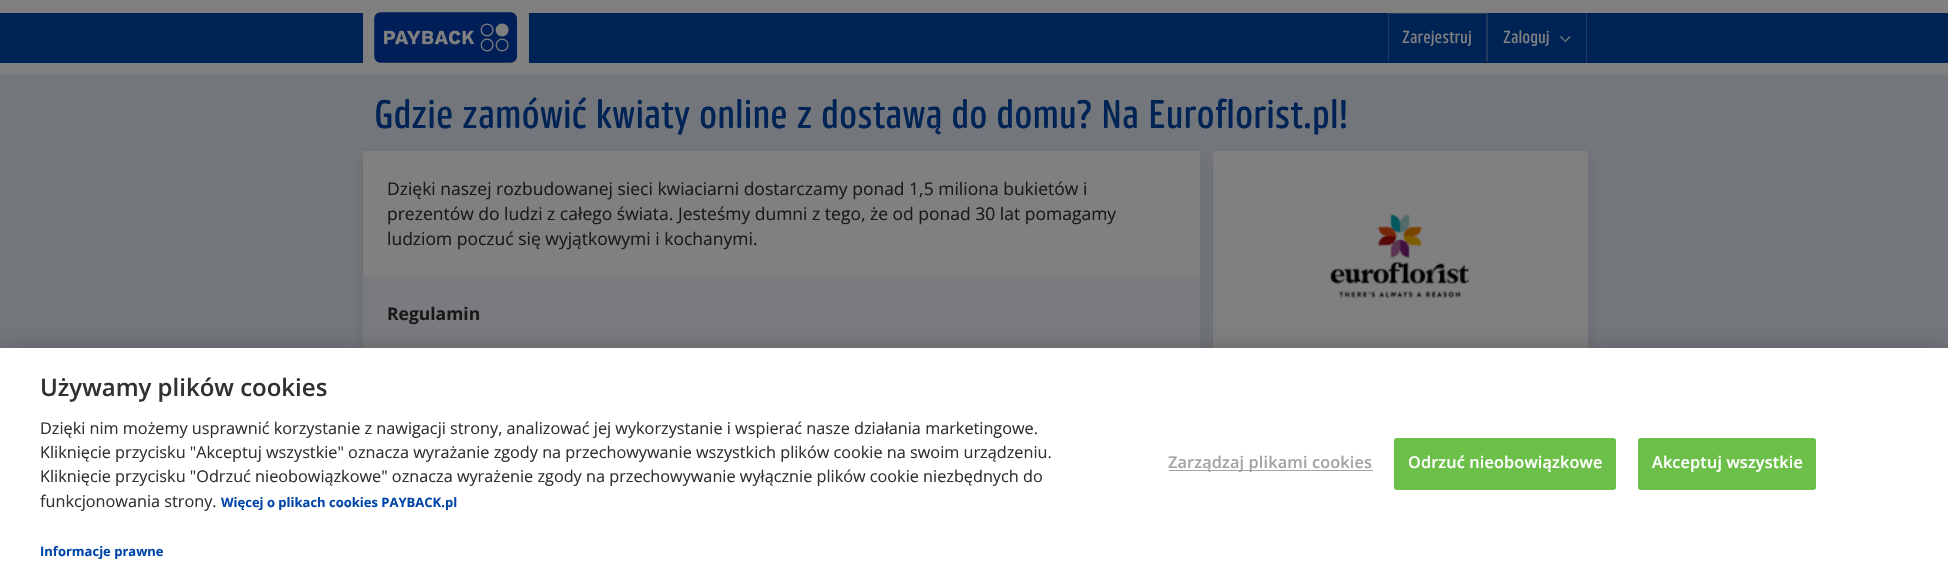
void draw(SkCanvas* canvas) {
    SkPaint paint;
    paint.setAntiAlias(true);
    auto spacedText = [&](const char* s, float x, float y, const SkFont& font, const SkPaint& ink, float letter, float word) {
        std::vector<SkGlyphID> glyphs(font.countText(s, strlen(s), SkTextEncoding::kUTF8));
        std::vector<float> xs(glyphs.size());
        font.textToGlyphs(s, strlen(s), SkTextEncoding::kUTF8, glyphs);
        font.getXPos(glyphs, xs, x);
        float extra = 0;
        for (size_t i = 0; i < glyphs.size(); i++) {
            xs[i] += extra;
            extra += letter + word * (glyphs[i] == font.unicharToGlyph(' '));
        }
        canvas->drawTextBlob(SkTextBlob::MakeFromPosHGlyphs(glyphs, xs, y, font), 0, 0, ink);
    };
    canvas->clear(0xFF73767B);
    paint.setColor(0xFF002355);
    canvas->drawRect(SkRect::MakeXYWH(0, 13, 1948, 50), paint);
    paint.setColor(0xFF808080);
    canvas->drawRect(SkRect::MakeXYWH(0, 0, 1948, 13), paint);
    canvas->drawRect(SkRect::MakeXYWH(0, 63, 1948, 12), paint);
    canvas->drawRect(SkRect::MakeXYWH(363, 13, 166, 50), paint);
    canvas->drawImageRect(SkImages::DeferredFromEncodedData(SkData::MakeFromFileName("img1.png")), SkRect::MakeXYWH(374, 12, 144, 51), SkSamplingOptions());
    canvas->save();
    canvas->clipRect(SkRect::MakeXYWH(1388, 13, 200, 50));
    paint.setColor(0xFF203A60);
    canvas->drawPath(SkPathBuilder().moveTo(1388, 12).lineTo(1488, 12).lineTo(1486, 14).lineTo(1389, 14).close().detach(), paint);
    canvas->restore();
    paint.setColor(0x8040516A);
    canvas->drawPath(SkPathBuilder().moveTo(1488, 12).lineTo(1488, 62).lineTo(1486, 61).lineTo(1486, 14).close().detach(), paint);
    canvas->drawPath(SkPathBuilder().moveTo(1388, 62).lineTo(1388, 12).lineTo(1389, 14).lineTo(1389, 61).close().detach(), paint);
    SkFont font1(fontMgr->matchFamilyStyle("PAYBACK", SkFontStyle(300, SkFontStyle::kNormal_Width, SkFontStyle::kUpright_Slant)), 17.5f);
    font1.setSubpixel(true);
    paint.setColor(0xFF808080);
    canvas->drawString("Zarejestruj", 1402, 43, font1, paint);
    paint.setColor(0xFF203A60);
    canvas->drawRect(SkRect::MakeXYWH(1586, 13, 1, 50), paint);
    paint.setColor(0xFF808080);
    canvas->drawString("Zaloguj", 1503, 43, font1, paint);
    canvas->drawPath(SkPathBuilder().moveTo(1569.5f, 36).lineTo(1570.5f, 37).lineTo(1565.5f, 42).lineTo(1564.5f, 41.5f).close().detach(), paint);
    canvas->drawPath(SkPathBuilder().moveTo(1561, 36).lineTo(1566, 41.5f).lineTo(1565.5f, 42).lineTo(1560, 37).close().detach(), paint);
    SkFont font2(fontMgr->matchFamilyStyle("PAYBACK", SkFontStyle(300, SkFontStyle::kNormal_Width, SkFontStyle::kUpright_Slant)), 40);
    font2.setSubpixel(true);
    paint.setColor(0xFF002355);
    canvas->drawString("Gdzie zamówić kwiaty online z dostawą do domu? Na Euroflorist.pl!", 374, 128, font2, paint);
    paint.setColor(0x26262627);
    paint.setMaskFilter(SkMaskFilter::MakeBlur(kNormal_SkBlurStyle, 6));
    canvas->drawRect(SkRect::MakeXYWH(1213, 155, 375, 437), paint);
    paint.setMaskFilter(nullptr);
    paint.setColor(0xFF808080);
    canvas->drawRect(SkRect::MakeXYWH(1213, 151, 375, 197), paint);
    paint.setColor(0x26262627);
    paint.setMaskFilter(SkMaskFilter::MakeBlur(kNormal_SkBlurStyle, 6));
    canvas->drawRect(SkRect::MakeXYWH(363, 155, 837, 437), paint);
    paint.setMaskFilter(nullptr);
    paint.setColor(0xFF808080);
    canvas->drawRect(SkRect::MakeXYWH(363, 151, 837, 125), paint);
    SkFont font3(fontMgr->matchFamilyStyle("Open Sans", SkFontStyle::Normal()), 17.5f);
    font3.setSubpixel(true);
    paint.setColor(0xFF19191A);
    canvas->drawString("Dzięki naszej rozbudowanej sieci kwiaciarni dostarczamy ponad 1,5 miliona bukietów i", 387, 195, font3, paint);
    canvas->drawString("prezentów do ludzi z całego świata. Jesteśmy dumni z tego, że od ponad 30 lat pomagamy", 387, 220, font3, paint);
    canvas->drawString("ludziom poczuć się wyjątkowymi i kochanymi.", 387, 245, font3, paint);
    paint.setColor(0xFF797B7E);
    canvas->drawRect(SkRect::MakeXYWH(363, 276, 837, 72), paint);
    SkFont font4(fontMgr->matchFamilyStyle("Open Sans", SkFontStyle::Bold()), 17.5f);
    font4.setSubpixel(true);
    paint.setColor(0xFF19191A);
    canvas->drawString("Regulamin", 387, 320, font4, paint);
    canvas->drawImageRect(SkImages::DeferredFromEncodedData(SkData::MakeFromFileName("img2.png")), SkRect::MakeXYWH(1329, 213, 141, 85), SkSamplingOptions());
    paint.setColor(0x33000000);
    paint.setMaskFilter(SkMaskFilter::MakeBlur(kNormal_SkBlurStyle, 11));
    canvas->drawRect(SkRect::MakeXYWH(0, 348, 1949, 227), paint);
    paint.setMaskFilter(nullptr);
    paint.setColor(0xFFFFFFFF);
    canvas->drawRect(SkRect::MakeXYWH(0, 348, 1948, 226), paint);
    SkFont font5(fontMgr->matchFamilyStyle("Open Sans", SkFontStyle(600, SkFontStyle::kNormal_Width, SkFontStyle::kUpright_Slant)), 24);
    font5.setSubpixel(true);
    paint.setColor(0xFF313133);
    canvas->drawString("Używamy plików cookies", 40, 396, font5, paint);
    SkFont font6(fontMgr->matchFamilyStyle("Open Sans", SkFontStyle::Normal()), 16.25f);
    font6.setSubpixel(true);
    canvas->drawString("Dzięki nim możemy usprawnić korzystanie z nawigacji strony, analizować jej wykorzystanie i wspierać nasze działania marketingowe.", 40, 434, font6, paint);
    canvas->drawString("Kliknięcie przycisku \"Akceptuj wszystkie\" oznacza wyrażanie zgody na przechowywanie wszystkich plików cookie na swoim urządzeniu.", 40, 458, font6, paint);
    canvas->drawString("Kliknięcie przycisku \"Odrzuć nieobowiązkowe\" oznacza wyrażenie zgody na przechowywanie wyłącznie plików cookie niezbędnych do", 40, 482, font6, paint);
    canvas->drawString("funkcjonowania strony.", 40, 507, font6, paint);
    SkFont font7(fontMgr->matchFamilyStyle("Open Sans", SkFontStyle::Bold()), 13);
    font7.setSubpixel(true);
    paint.setColor(0xFF0046AA);
    canvas->drawString("Więcej o plikach cookies PAYBACK.pl", 221, 507, font7, paint);
    canvas->drawString("Informacje prawne", 40, 556, font7, paint);
    paint.setColor(0xFFA3A3A3);
    canvas->drawRect(SkRect::MakeXYWH(1169, 470, 204, 1), paint);
    SkFont font8(fontMgr->matchFamilyStyle("Open Sans", SkFontStyle(600, SkFontStyle::kNormal_Width, SkFontStyle::kUpright_Slant)), 16.25f);
    font8.setSubpixel(true);
    spacedText("Zarządzaj plikami cookies", 1168, 468, font8, paint, 0.15f, 0);
    paint.setColor(0xFF6CC04A);
    canvas->drawRoundRect(SkRect::MakeXYWH(1394.5f, 438.5f, 221, 51), 2, 2, paint);
    paint.setStyle(SkPaint::kStroke_Style);
    paint.setStrokeWidth(1);
    canvas->drawRoundRect(SkRect::MakeXYWH(1394.5f, 438.5f, 221, 51), 2, 2, paint);
    paint.setStyle(SkPaint::kFill_Style);
    paint.setColor(0xFFFFFFFF);
    spacedText("Odrzuć nieobowiązkowe", 1408, 468, font8, paint, 0.15f, 0);
    paint.setColor(0xFF6CC04A);
    canvas->drawRoundRect(SkRect::MakeXYWH(1638.5f, 438.5f, 177, 51), 2, 2, paint);
    paint.setStyle(SkPaint::kStroke_Style);
    canvas->drawRoundRect(SkRect::MakeXYWH(1638.5f, 438.5f, 177, 51), 2, 2, paint);
    paint.setStyle(SkPaint::kFill_Style);
    paint.setColor(0xFFFFFFFF);
    spacedText("Akceptuj wszystkie", 1652, 468, font8, paint, 0.15f, 0);
}
